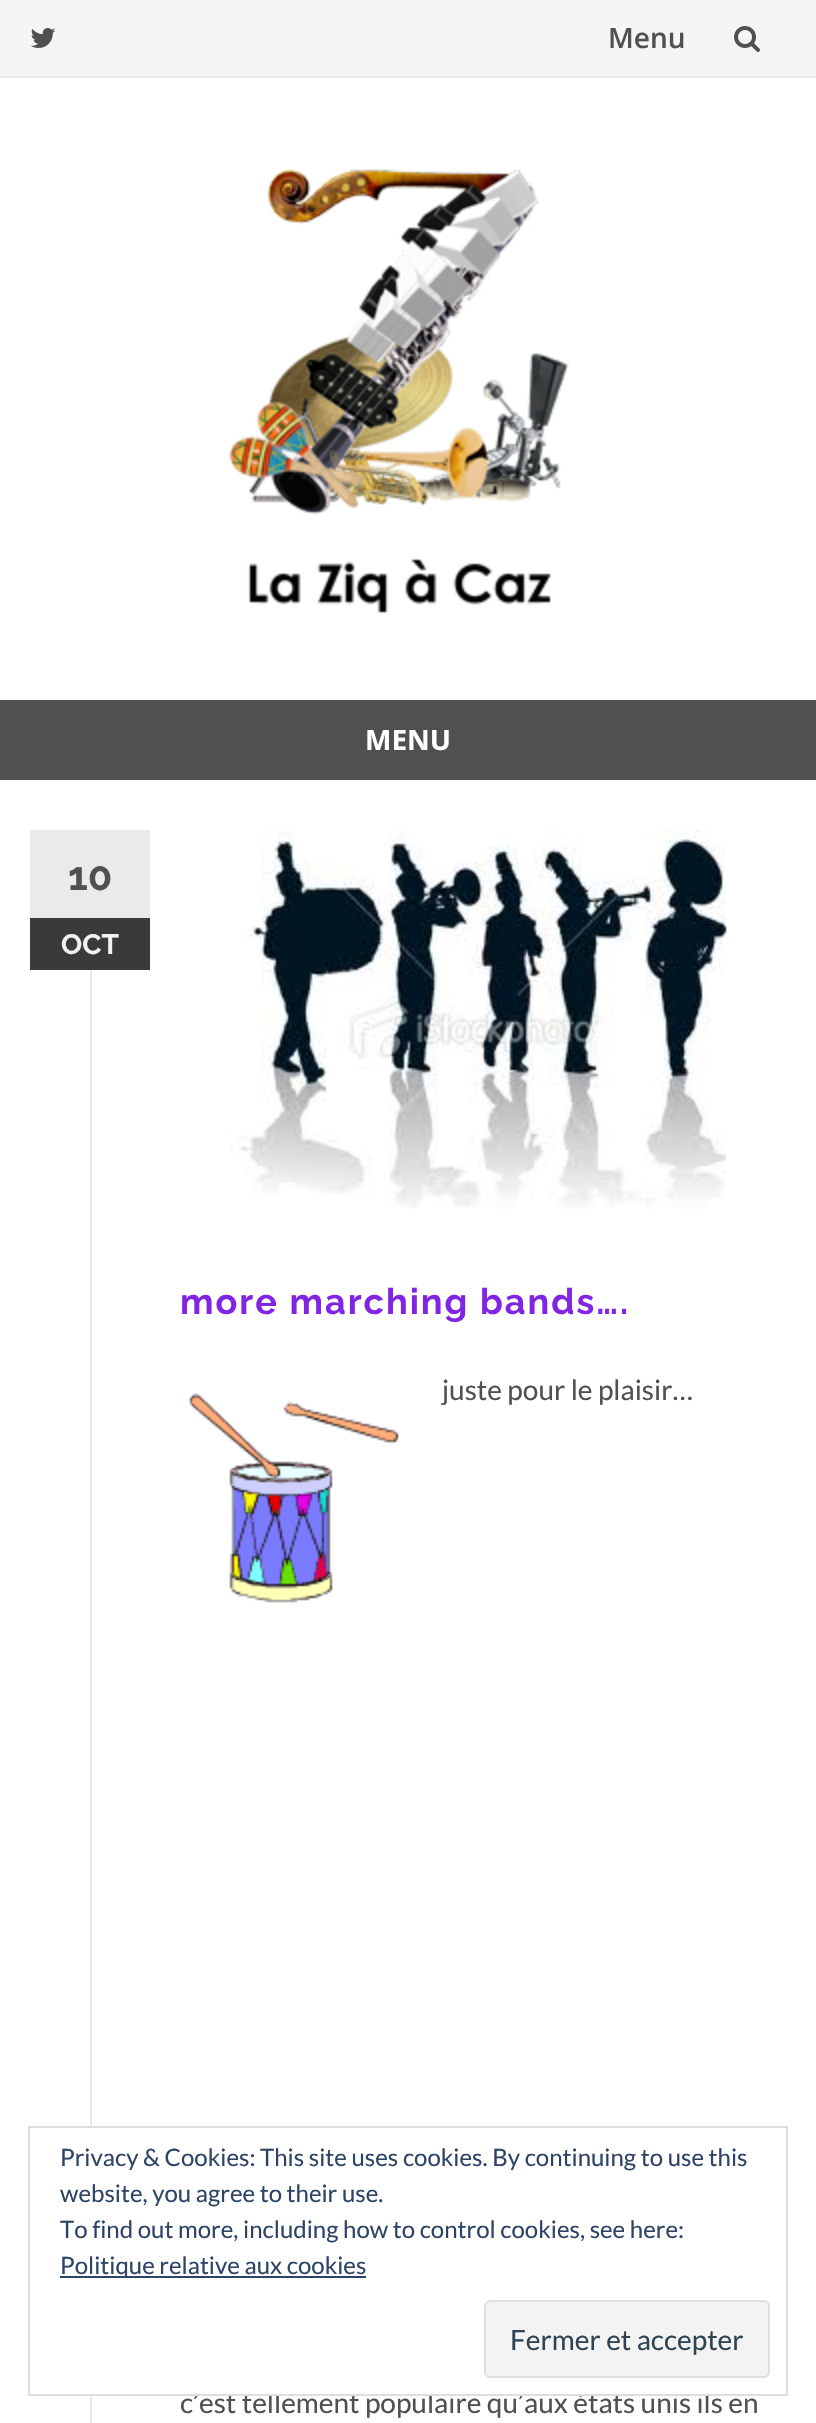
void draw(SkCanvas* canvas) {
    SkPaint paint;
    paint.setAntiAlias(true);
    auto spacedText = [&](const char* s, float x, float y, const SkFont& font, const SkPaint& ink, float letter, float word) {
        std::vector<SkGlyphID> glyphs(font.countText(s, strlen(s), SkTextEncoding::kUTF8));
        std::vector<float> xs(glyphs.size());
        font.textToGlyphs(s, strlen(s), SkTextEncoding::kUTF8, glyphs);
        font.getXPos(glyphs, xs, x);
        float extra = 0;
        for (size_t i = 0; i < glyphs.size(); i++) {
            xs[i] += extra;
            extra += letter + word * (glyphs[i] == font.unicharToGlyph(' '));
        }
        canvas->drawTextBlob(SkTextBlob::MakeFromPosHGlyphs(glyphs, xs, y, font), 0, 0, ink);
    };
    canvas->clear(0xFFFFFFFF);
    paint.setColor(0xFFF5F5F5);
    canvas->drawRect(SkRect::MakeXYWH(0, 0, 816, 76), paint);
    paint.setColor(0xFFEAEAEA);
    canvas->drawRect(SkRect::MakeXYWH(0, 76, 816, 2), paint);
    canvas->drawImageRect(SkImages::DeferredFromEncodedData(SkData::MakeFromFileName("img1.png")), SkRect::MakeXYWH(30, 28, 26, 20), SkSamplingOptions());
    SkFont font1(fontMgr->matchFamilyStyle("Open Sans", SkFontStyle(600, SkFontStyle::kNormal_Width, SkFontStyle::kUpright_Slant)), 28);
    font1.setSubpixel(true);
    paint.setColor(0xFF505050);
    canvas->drawString("Menu", 608, 48, font1, paint);
    canvas->drawImageRect(SkImages::DeferredFromEncodedData(SkData::MakeFromFileName("img2.png")), SkRect::MakeXYWH(734, 26, 26, 26), SkSamplingOptions());
    canvas->drawImageRect(SkImages::DeferredFromEncodedData(SkData::MakeFromFileName("img3.png")), SkRect::MakeXYWH(229, 169, 340, 445), SkSamplingOptions());
    canvas->drawRect(SkRect::MakeXYWH(0, 700, 816, 80), paint);
    SkFont font2(fontMgr->matchFamilyStyle("Open Sans", SkFontStyle::Bold()), 28);
    font2.setSubpixel(true);
    paint.setColor(0xFFFFFFFF);
    canvas->drawString("MENU", 365, 750, font2, paint);
    paint.setColor(0xFFEAEAEA);
    canvas->drawRect(SkRect::MakeXYWH(30, 830, 120, 88), paint);
    SkFont font3(fontMgr->matchFamilyStyle("Raleway", SkFontStyle::Bold()), 40);
    font3.setSubpixel(true);
    paint.setColor(0xFF505050);
    canvas->drawString("10", 68, 890, font3, paint);
    paint.setColor(0xFF3A3A3A);
    canvas->drawRect(SkRect::MakeXYWH(30, 918, 120, 52), paint);
    SkFont font4(fontMgr->matchFamilyStyle("Raleway", SkFontStyle::Bold()), 28);
    font4.setSubpixel(true);
    paint.setColor(0xFFF1F1F1);
    canvas->drawString("OCT", 61, 954, font4, paint);
    canvas->drawImageRect(SkImages::DeferredFromEncodedData(SkData::MakeFromFileName("img4.png")), SkRect::MakeXYWH(230, 830, 497, 379), SkSamplingOptions());
    paint.setColor(0xFFEAEAEA);
    canvas->drawRect(SkRect::MakeXYWH(90, 970, 2, 1453), paint);
    SkFont font5(fontMgr->matchFamilyStyle("Raleway", SkFontStyle::Bold()), 36);
    font5.setSubpixel(true);
    paint.setColor(0xFF8224E3);
    spacedText("more marching bands….", 180, 1314, font5, paint, 2, 0);
    canvas->drawImageRect(SkImages::DeferredFromEncodedData(SkData::MakeFromFileName("img5.png")), SkRect::MakeXYWH(189, 1393, 210, 210), SkSamplingOptions());
    SkFont font6(fontMgr->matchFamilyStyle("Lato", SkFontStyle::Normal()), 28);
    font6.setSubpixel(true);
    paint.setColor(0xFF505050);
    canvas->drawString("juste pour le plaisir…", 442, 1400, font6, paint);
    canvas->drawString("c’est tellement populaire qu’aux états unis ils en", 180, 2413, font6, paint);
    paint.setColor(0xFFFFFFFF);
    canvas->drawRect(SkRect::MakeXYWH(90, 2128, 619, 266), paint);
    paint.setStyle(SkPaint::kStroke_Style);
    paint.setStrokeWidth(2);
    paint.setColor(0xFFDEDEDE);
    canvas->drawRect(SkRect::MakeXYWH(29, 2127, 758, 268), paint);
    SkFont font7(fontMgr->matchFamilyStyle("Lato", SkFontStyle::Normal()), 24);
    font7.setSubpixel(true);
    paint.setStyle(SkPaint::kFill_Style);
    paint.setColor(0xFF2E4467);
    canvas->drawString("Privacy & Cookies: This site uses cookies. By continuing to use this", 60, 2166, font7, paint);
    canvas->drawString("website, you agree to their use.", 60, 2202, font7, paint);
    canvas->drawString("To find out more, including how to control cookies, see here:", 60, 2238, font7, paint);
    canvas->drawRect(SkRect::MakeXYWH(60, 2276, 306, 2), paint);
    canvas->drawString("Politique relative aux cookies", 60, 2274, font7, paint);
    paint.setColor(0xFFF3F3F3);
    canvas->drawRoundRect(SkRect::MakeXYWH(485, 2301, 284, 76), 5, 5, paint);
    paint.setStyle(SkPaint::kStroke_Style);
    paint.setColor(0xFFDEDEDE);
    canvas->drawRoundRect(SkRect::MakeXYWH(485, 2301, 284, 76), 5, 5, paint);
    paint.setStyle(SkPaint::kFill_Style);
    paint.setColor(0xFF2E4453);
    canvas->drawString("Fermer et accepter", 510, 2350, font6, paint);
}
